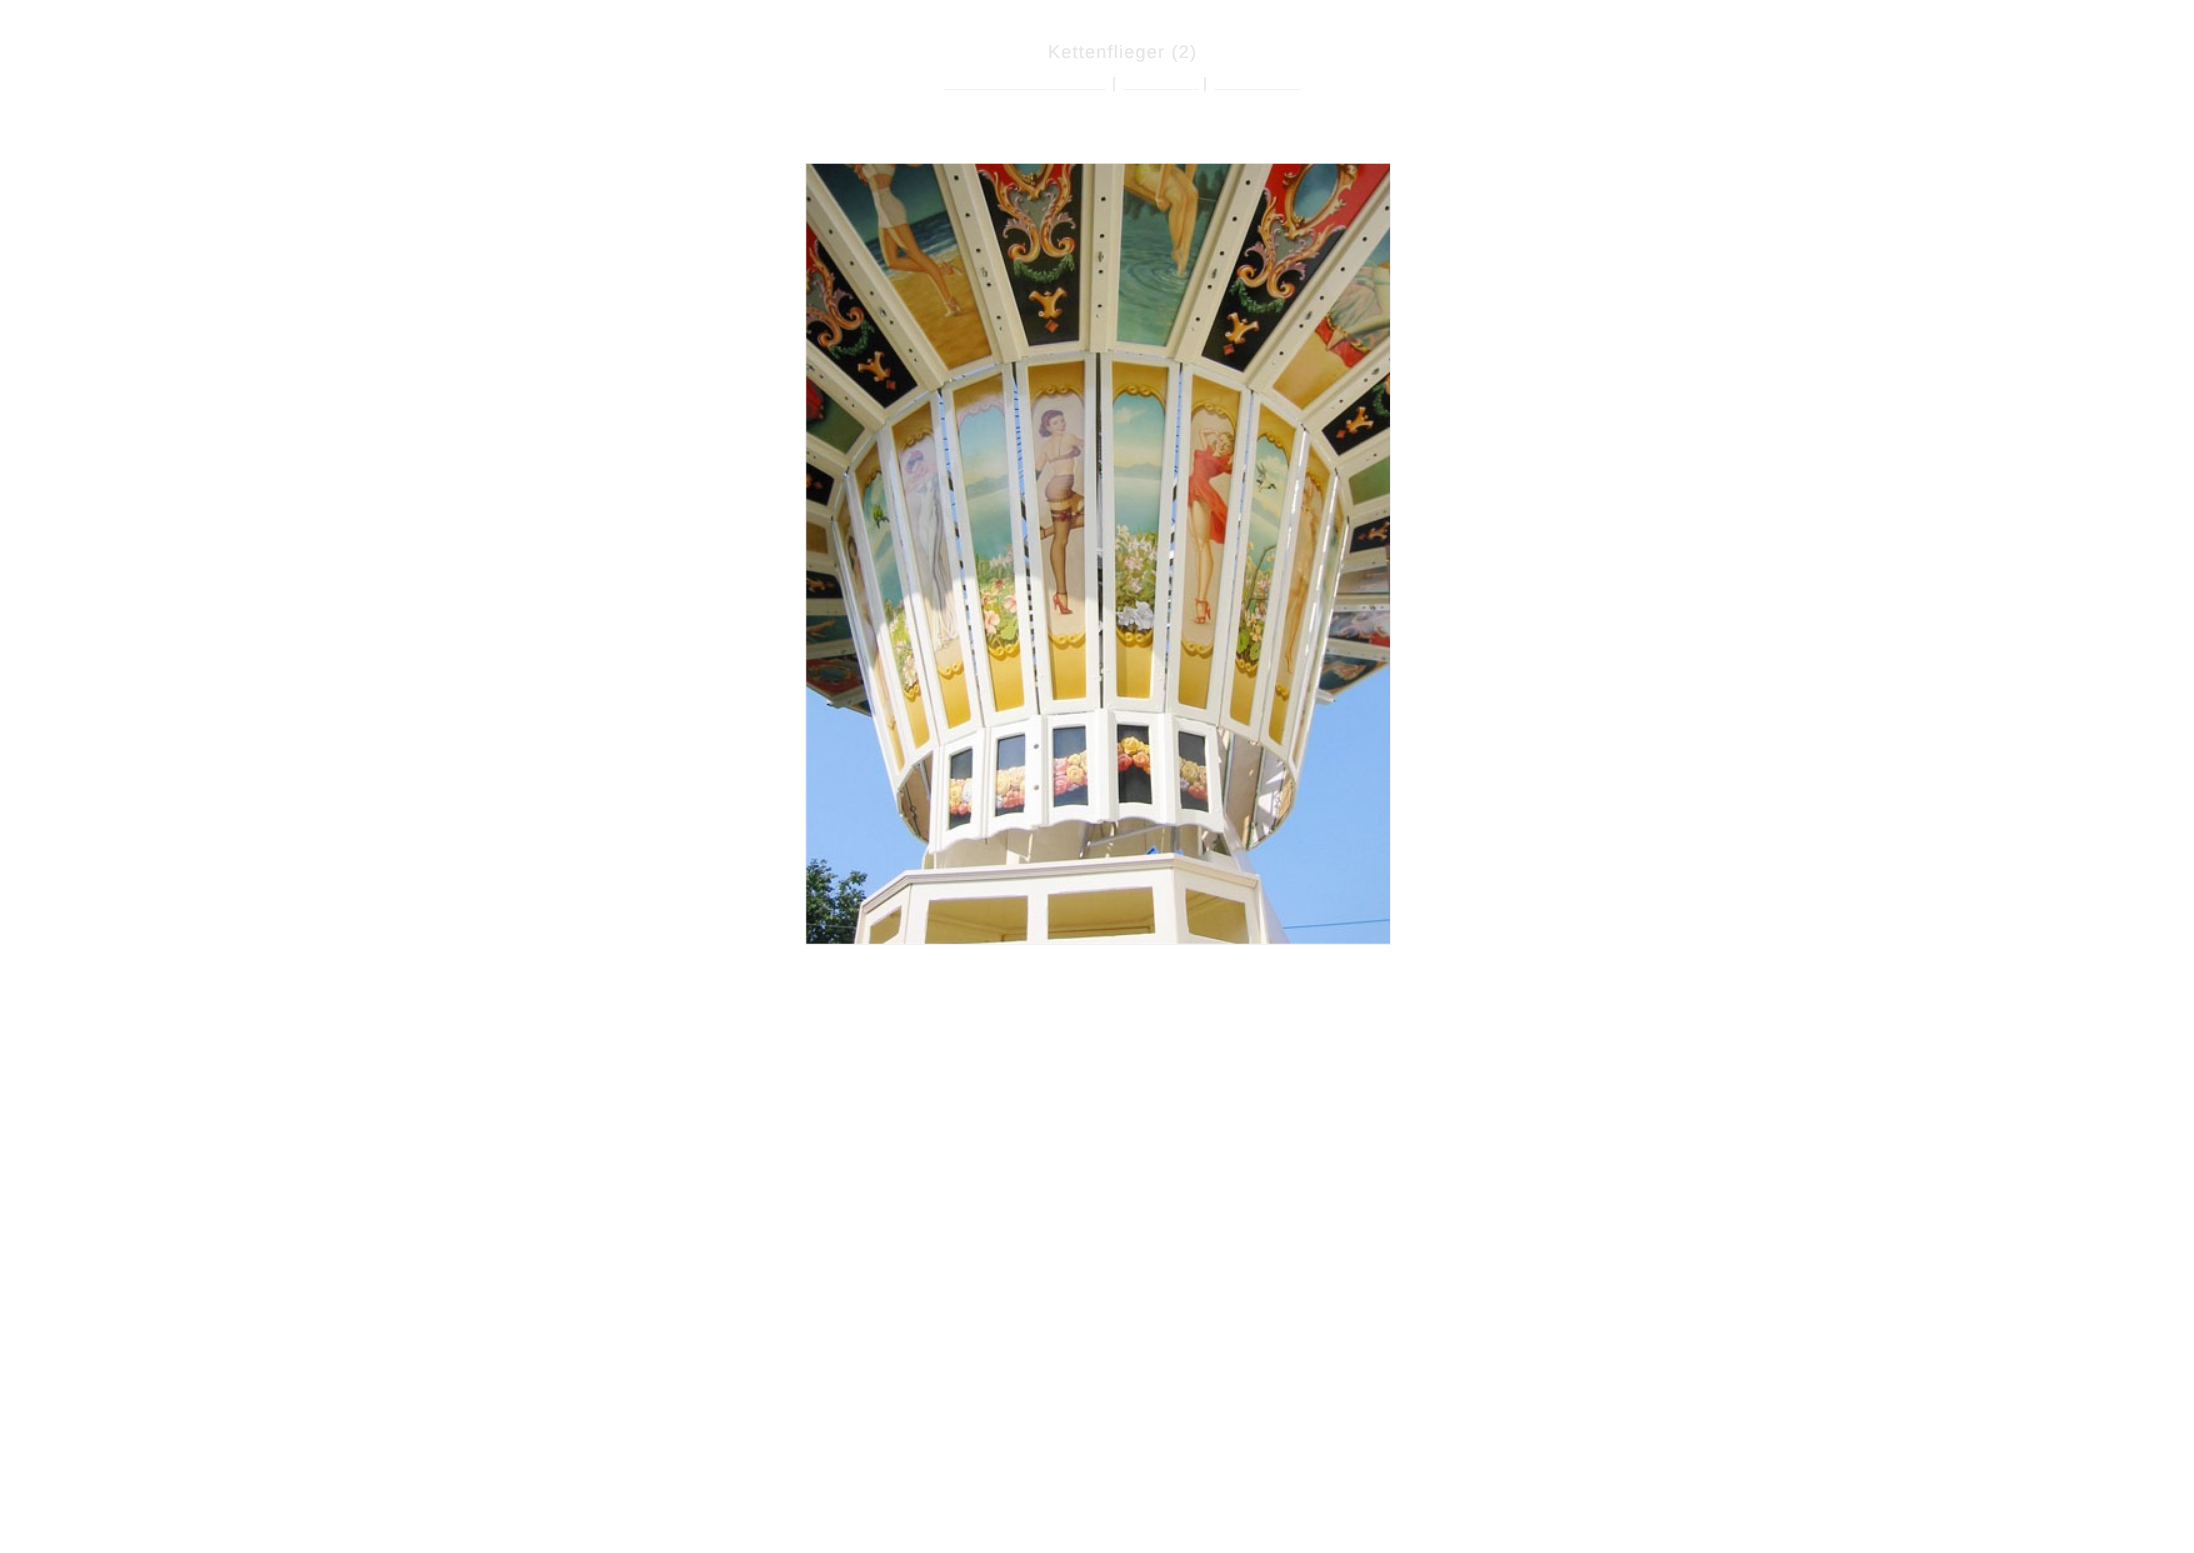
void draw(SkCanvas* canvas) {
    SkPaint paint;
    paint.setAntiAlias(true);
    auto spacedText = [&](const char* s, float x, float y, const SkFont& font, const SkPaint& ink, float letter, float word) {
        std::vector<SkGlyphID> glyphs(font.countText(s, strlen(s), SkTextEncoding::kUTF8));
        std::vector<float> xs(glyphs.size());
        font.textToGlyphs(s, strlen(s), SkTextEncoding::kUTF8, glyphs);
        font.getXPos(glyphs, xs, x);
        float extra = 0;
        for (size_t i = 0; i < glyphs.size(); i++) {
            xs[i] += extra;
            extra += letter + word * (glyphs[i] == font.unicharToGlyph(' '));
        }
        canvas->drawTextBlob(SkTextBlob::MakeFromPosHGlyphs(glyphs, xs, y, font), 0, 0, ink);
    };
    canvas->clear(0xFFFFFFFF);
    SkFont font1(fontMgr->matchFamilyStyle("Liberation Sans", SkFontStyle::Normal()), 18);
    font1.setSubpixel(true);
    paint.setColor(0xFFE5E5E5);
    spacedText("Kettenflieger (2)", 1048, 58, font1, paint, 1.25f, 0);
    paint.setColor(0xFFF2F2F2);
    canvas->drawRect(SkRect::MakeXYWH(944, 89, 162, 1), paint);
    SkFont font2(fontMgr->matchFamilyStyle("Liberation Sans", SkFontStyle::Normal()), 15);
    font2.setSubpixel(true);
    paint.setColor(0xFFE5E5E5);
    spacedText("|", 1112, 88, font2, paint, 1.25f, 0);
    paint.setColor(0xFFF2F2F2);
    canvas->drawRect(SkRect::MakeXYWH(1123, 89, 75, 1), paint);
    paint.setColor(0xFFE5E5E5);
    spacedText("|", 1203, 88, font2, paint, 1.25f, 0);
    paint.setColor(0xFFF2F2F2);
    canvas->drawRect(SkRect::MakeXYWH(1214, 89, 87, 1), paint);
    paint.setStyle(SkPaint::kStroke_Style);
    paint.setStrokeWidth(1);
    paint.setColor(0xFFF1F1F1);
    canvas->drawRect(SkRect::MakeXYWH(805.5f, 163.5f, 585, 781), paint);
    canvas->drawImageRect(SkImages::DeferredFromEncodedData(SkData::MakeFromFileName("img1.png")), SkRect::MakeXYWH(806, 163, 584, 781), SkSamplingOptions());
}
